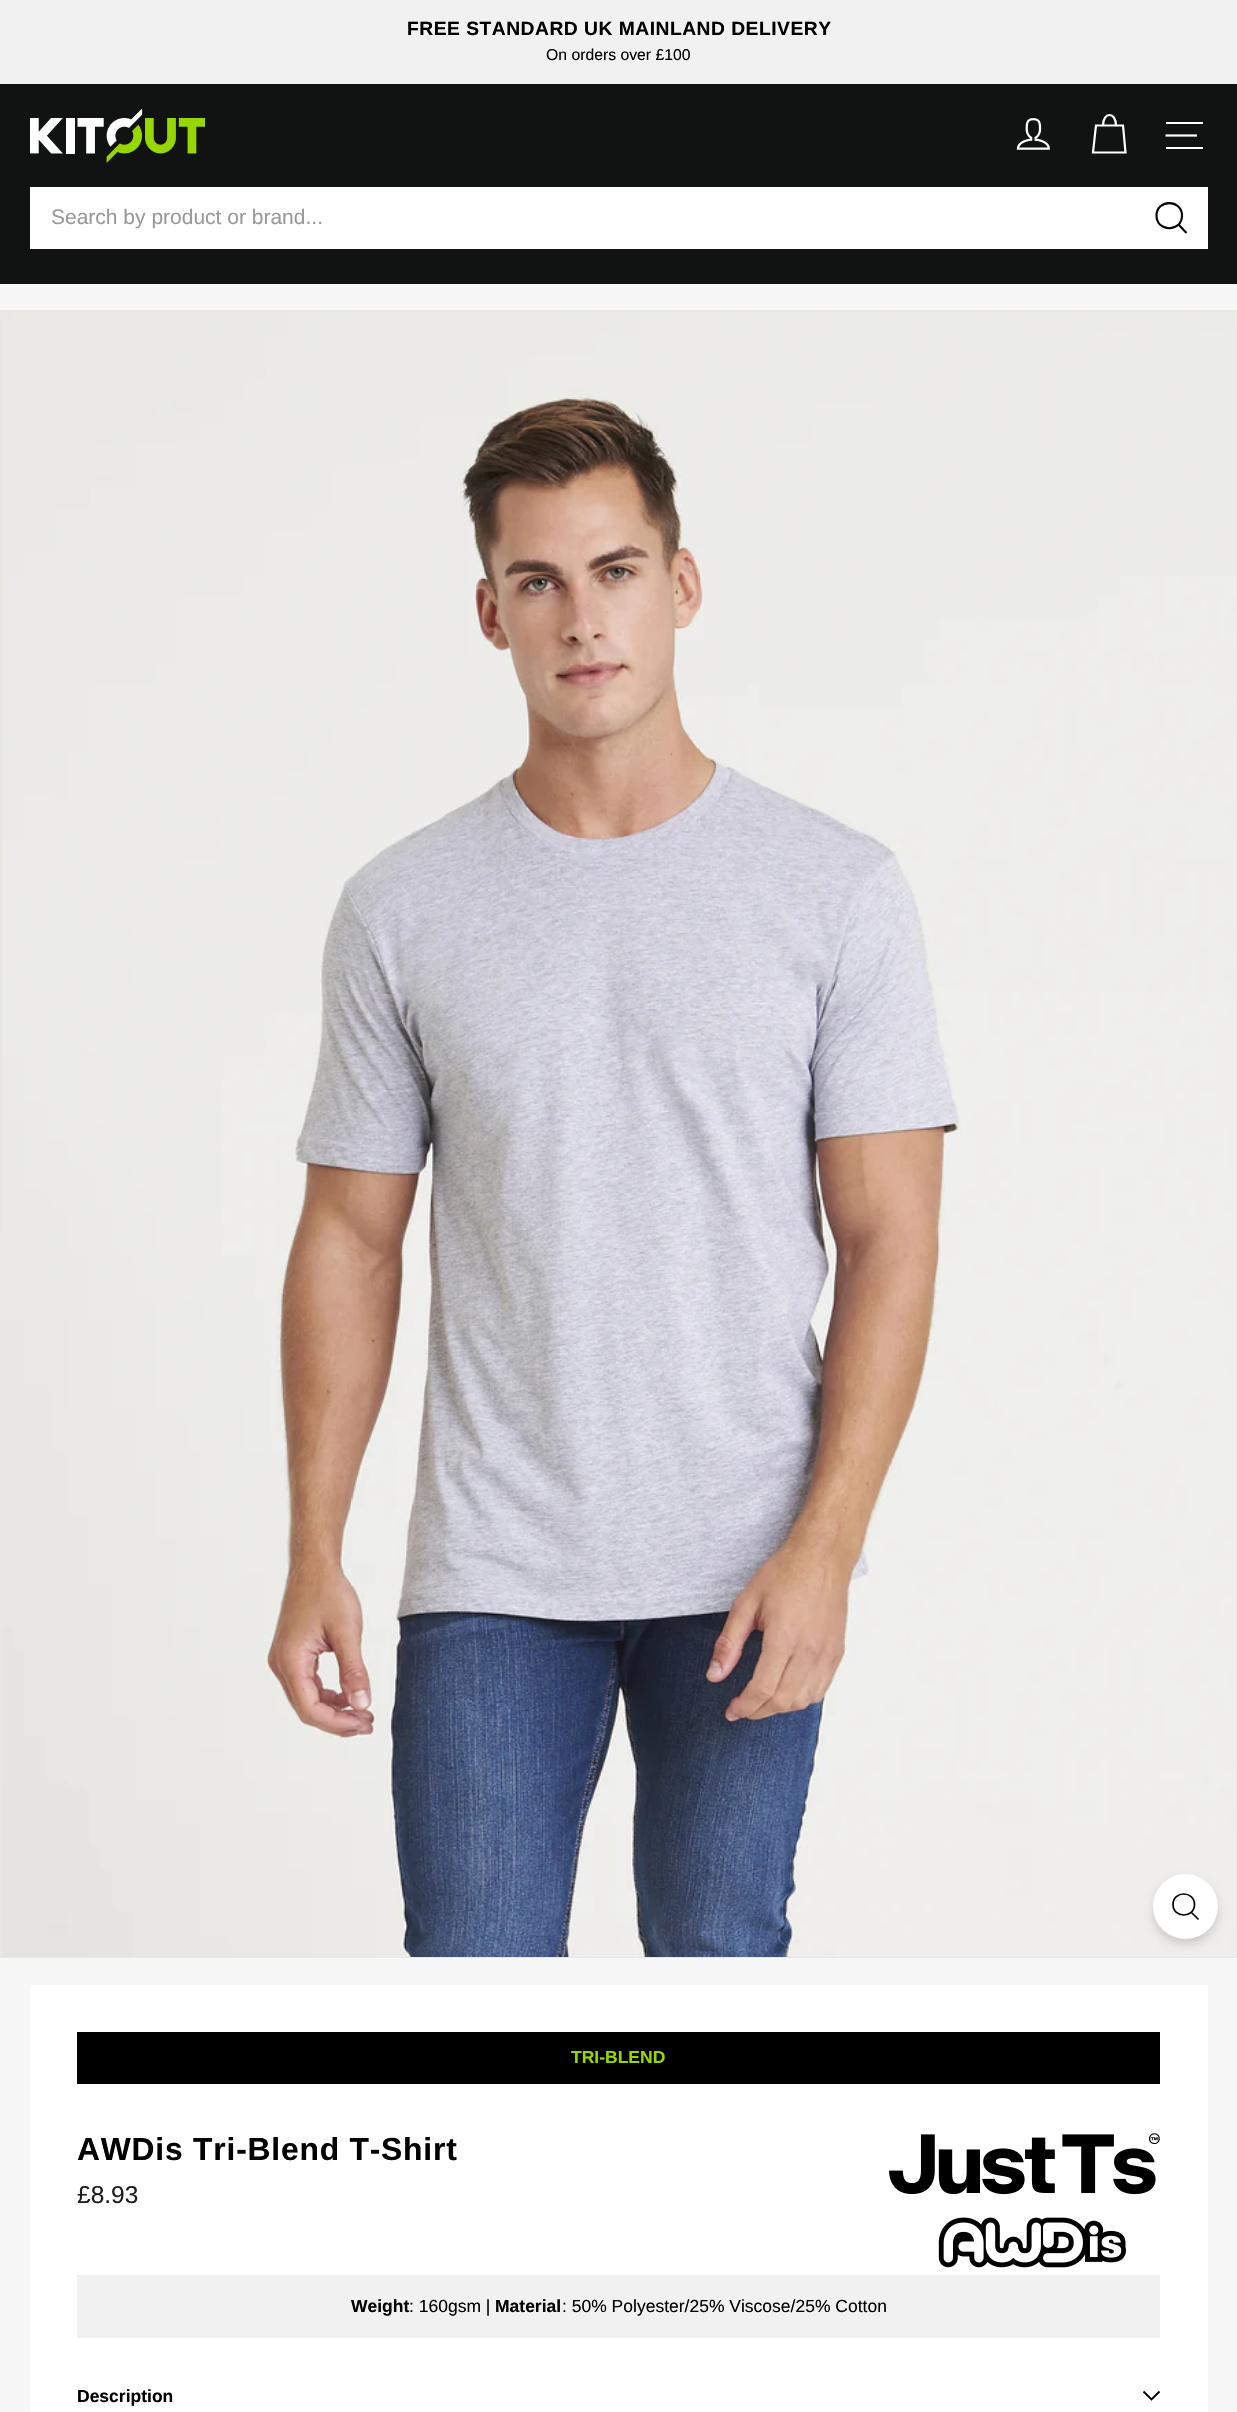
void draw(SkCanvas* canvas) {
    SkPaint paint;
    paint.setAntiAlias(true);
    auto spacedText = [&](const char* s, float x, float y, const SkFont& font, const SkPaint& ink, float letter, float word) {
        std::vector<SkGlyphID> glyphs(font.countText(s, strlen(s), SkTextEncoding::kUTF8));
        std::vector<float> xs(glyphs.size());
        font.textToGlyphs(s, strlen(s), SkTextEncoding::kUTF8, glyphs);
        font.getXPos(glyphs, xs, x);
        float extra = 0;
        for (size_t i = 0; i < glyphs.size(); i++) {
            xs[i] += extra;
            extra += letter + word * (glyphs[i] == font.unicharToGlyph(' '));
        }
        canvas->drawTextBlob(SkTextBlob::MakeFromPosHGlyphs(glyphs, xs, y, font), 0, 0, ink);
    };
    canvas->clear(0xFF111212);
    paint.setColor(0xFFF1F1F1);
    canvas->drawRect(SkRect::MakeXYWH(0, 0, 1237, 84), paint);
    SkFont font1(fontMgr->matchFamilyStyle("Liberation Sans", SkFontStyle::Bold()), 19.25f);
    font1.setSubpixel(true);
    paint.setColor(0xFF000000);
    spacedText("FREE STANDARD UK MAINLAND DELIVERY", 407, 35, font1, paint, 0.5f, 0);
    SkFont font2(fontMgr->matchFamilyStyle("Liberation Sans", SkFontStyle::Normal()), 15.75f);
    font2.setSubpixel(true);
    canvas->drawString("On orders over £100", 546, 60, font2, paint);
    canvas->drawImageRect(SkImages::DeferredFromEncodedData(SkData::MakeFromFileName("img1.png")), SkRect::MakeXYWH(30, 109, 175, 54), SkSamplingOptions());
    canvas->drawImageRect(SkImages::DeferredFromEncodedData(SkData::MakeFromFileName("img2.png")), SkRect::MakeXYWH(1016, 118, 34, 32), SkSamplingOptions());
    paint.setStyle(SkPaint::kStroke_Style);
    paint.setStrokeWidth(2.2f);
    paint.setColor(0xFFFFFFFF);
    canvas->drawPath(SkPathBuilder().moveTo(1103, 125.5f).cubicTo(1103, 111.5f, 1116, 111.5f, 1116, 125.5f).moveTo(1096, 125.5f).lineTo(1123, 125.5f).lineTo(1125.5f, 152.5f).lineTo(1093, 152.5f).close().detach(), paint);
    paint.setStyle(SkPaint::kFill_Style);
    canvas->drawRect(SkRect::MakeXYWH(1166, 122, 37, 2), paint);
    paint.setStyle(SkPaint::kStroke_Style);
    canvas->drawPath(SkPathBuilder().moveTo(1165.5f, 135.5f).lineTo(1197, 135.5f).detach(), paint);
    paint.setStyle(SkPaint::kFill_Style);
    canvas->drawRect(SkRect::MakeXYWH(1166, 147, 37, 2), paint);
    canvas->drawRect(SkRect::MakeXYWH(30, 187, 1178, 62), paint);
    SkFont font3(fontMgr->matchFamilyStyle("Liberation Sans", SkFontStyle::Normal()), 21);
    font3.setSubpixel(true);
    paint.setColor(0xFF999999);
    canvas->drawString("Search by product or brand...", 51, 224, font3, paint);
    paint.setStyle(SkPaint::kStroke_Style);
    paint.setStrokeWidth(2.1f);
    paint.setColor(0xFF000000);
    canvas->drawPath(SkPathBuilder().moveTo(1182, 215.5f).cubicTo(1182, 232.5f, 1156.5f, 232.5f, 1156.5f, 215.5f).cubicTo(1156.5f, 199, 1182, 199, 1182, 215.5f).close().moveTo(1186.5f, 233).lineTo(1178.5f, 224.5f).detach(), paint);
    paint.setStyle(SkPaint::kFill_Style);
    paint.setColor(0xFFF7F7F7);
    canvas->drawRect(SkRect::MakeXYWH(0, 284, 1237, 2128), paint);
    paint.setStyle(SkPaint::kStroke_Style);
    paint.setStrokeWidth(2);
    paint.setColor(0xFFE8E8E1);
    canvas->drawRect(SkRect::MakeXYWH(1, 311, 1235, 1646), paint);
    canvas->drawImageRect(SkImages::DeferredFromEncodedData(SkData::MakeFromFileName("img3.png")), SkRect::MakeXYWH(2, 312, 1234, 1645), SkSamplingOptions());
    paint.setStyle(SkPaint::kFill_Style);
    paint.setColor(0x26000000);
    paint.setMaskFilter(SkMaskFilter::MakeBlur(kNormal_SkBlurStyle, 5));
    canvas->drawRoundRect(SkRect::MakeXYWH(1153, 1880, 65, 64), 32, 32, paint);
    paint.setMaskFilter(nullptr);
    paint.setColor(0xFFFFFFFF);
    canvas->drawCircle(1185.5f, 1906.5f, 32.5f, paint);
    paint.setStyle(SkPaint::kStroke_Style);
    paint.setStrokeWidth(1.7f);
    paint.setColor(0xFF000000);
    canvas->drawPath(SkPathBuilder().moveTo(1194.5f, 1904.5f).cubicTo(1194.5f, 1918.5f, 1173, 1918.5f, 1173, 1904.5f).cubicTo(1173, 1890.5f, 1194.5f, 1890.5f, 1194.5f, 1904.5f).close().moveTo(1198.5f, 1919.5f).lineTo(1191.5f, 1912.5f).detach(), paint);
    paint.setStyle(SkPaint::kFill_Style);
    paint.setColor(0xFFFFFFFF);
    canvas->drawRect(SkRect::MakeXYWH(30, 1985, 1178, 427), paint);
    paint.setColor(0xFF000000);
    canvas->drawRect(SkRect::MakeXYWH(77, 2032, 1083, 52), paint);
    SkFont font4(fontMgr->matchFamilyStyle("Liberation Sans", SkFontStyle::Bold()), 17.5f);
    font4.setSubpixel(true);
    paint.setColor(0xFF97D700);
    canvas->drawString("TRI-BLEND", 571, 2063, font4, paint);
    SkFont font5(fontMgr->matchFamilyStyle("Liberation Sans", SkFontStyle::Bold()), 31.8f);
    font5.setSubpixel(true);
    paint.setColor(0xFF000000);
    spacedText("AWDis Tri-Blend T-Shirt", 77, 2160, font5, paint, 0.8f, 0);
    canvas->drawImageRect(SkImages::DeferredFromEncodedData(SkData::MakeFromFileName("img4.png")), SkRect::MakeXYWH(889, 2133, 271, 135), SkSamplingOptions());
    SkFont font6(fontMgr->matchFamilyStyle("Liberation Sans", SkFontStyle::Normal()), 24.5f);
    font6.setSubpixel(true);
    paint.setColor(0xFF1C1D1D);
    canvas->drawString("£8.93", 77, 2203, font6, paint);
    paint.setColor(0xFFF1F1F1);
    canvas->drawRect(SkRect::MakeXYWH(77, 2275, 1083, 63), paint);
    paint.setColor(0xFF000000);
    canvas->drawString("Weight", 351, 2312, font4, paint);
    SkFont font7(fontMgr->matchFamilyStyle("Liberation Sans", SkFontStyle::Normal()), 17.5f);
    font7.setSubpixel(true);
    canvas->drawString(": 160gsm |", 409, 2312, font7, paint);
    canvas->drawString("Material", 495, 2312, font4, paint);
    canvas->drawString(": 50% Polyester/25% Viscose/25% Cotton", 562, 2312, font7, paint);
    canvas->drawString("Description", 77, 2402, font4, paint);
    paint.setStyle(SkPaint::kStroke_Style);
    paint.setStrokeWidth(1.9f);
    canvas->drawPath(SkPathBuilder().moveTo(1143.5f, 2391.5f).lineTo(1151.5f, 2399.5f).lineTo(1159.5f, 2391.5f).detach(), paint);
}
